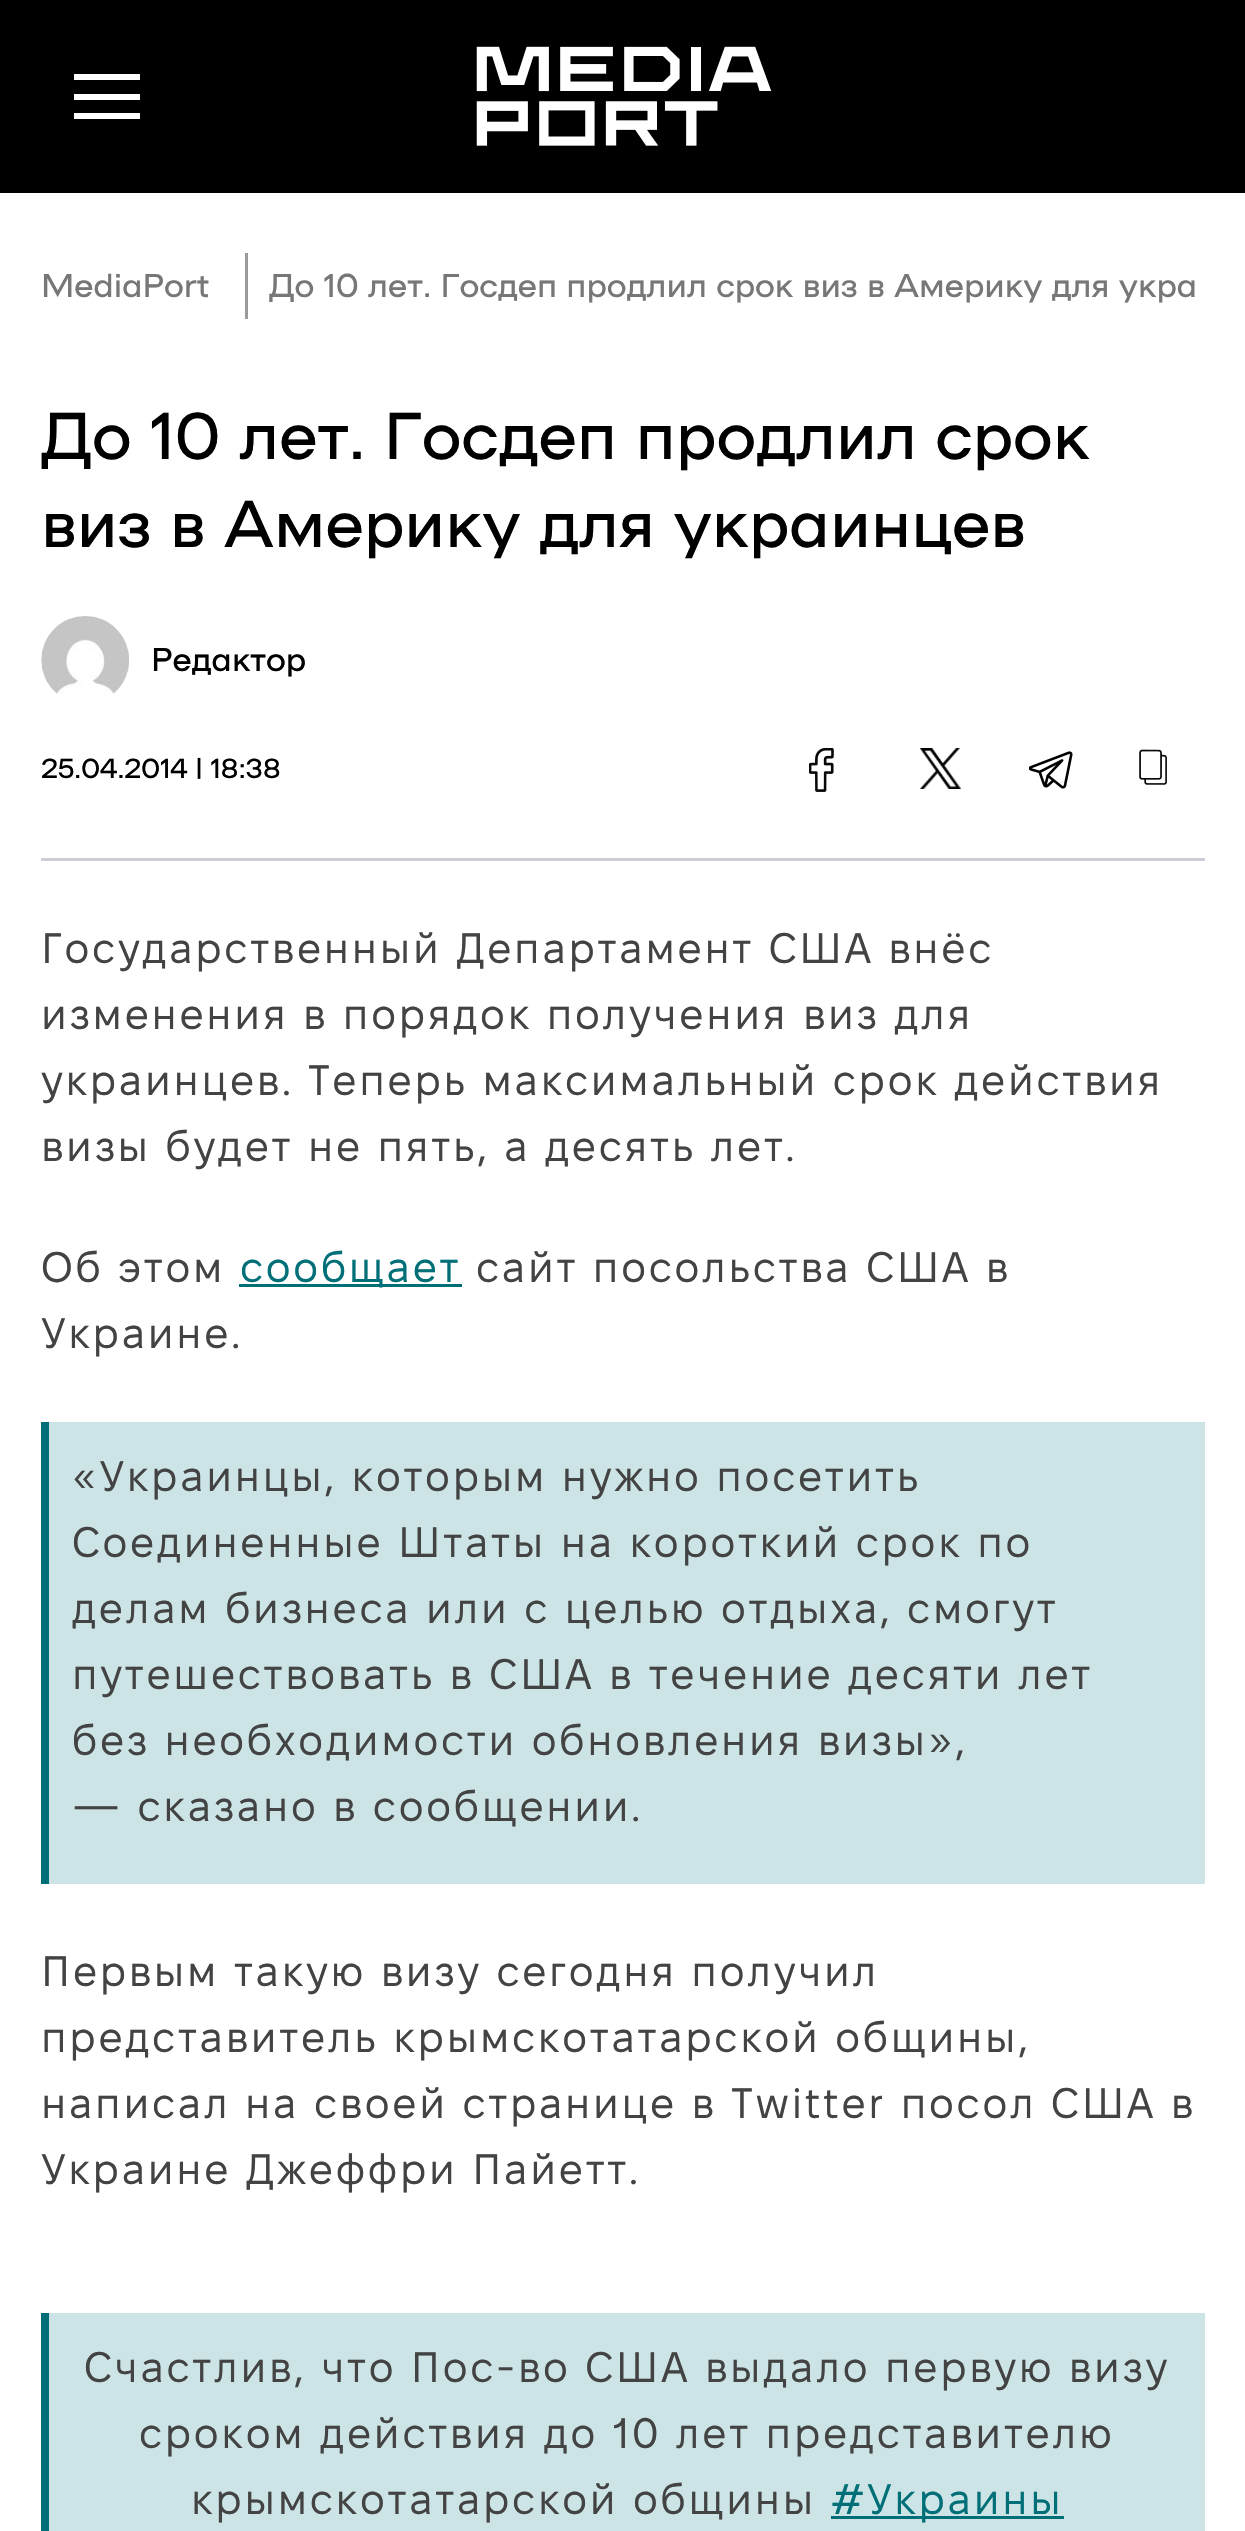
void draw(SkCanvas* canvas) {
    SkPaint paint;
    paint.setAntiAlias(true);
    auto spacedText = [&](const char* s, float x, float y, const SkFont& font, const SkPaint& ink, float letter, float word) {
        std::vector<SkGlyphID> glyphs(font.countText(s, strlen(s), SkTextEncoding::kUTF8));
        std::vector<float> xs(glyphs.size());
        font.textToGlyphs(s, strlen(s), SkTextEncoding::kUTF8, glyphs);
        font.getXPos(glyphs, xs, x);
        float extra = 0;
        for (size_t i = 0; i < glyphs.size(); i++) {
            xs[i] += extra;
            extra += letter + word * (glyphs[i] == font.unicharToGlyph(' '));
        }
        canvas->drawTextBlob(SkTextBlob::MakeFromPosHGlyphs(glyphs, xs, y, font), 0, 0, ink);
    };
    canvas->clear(0xFFFFFFFF);
    paint.setColor(0xFF000000);
    canvas->drawRect(SkRect::MakeXYWH(0, 0, 1245, 193), paint);
    paint.setColor(0xFFFFFFFF);
    canvas->drawRect(SkRect::MakeXYWH(74, 94, 66, 6), paint);
    canvas->drawRect(SkRect::MakeXYWH(74, 74, 66, 6), paint);
    canvas->drawRect(SkRect::MakeXYWH(74, 113, 66, 6), paint);
    canvas->drawImageRect(SkImages::DeferredFromEncodedData(SkData::MakeFromFileName("img1.png")), SkRect::MakeXYWH(476, 46, 296, 100), SkSamplingOptions());
    SkFont font1(fontMgr->matchFamilyStyle("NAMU", SkFontStyle(900, SkFontStyle::kNormal_Width, SkFontStyle::kUpright_Slant)), 33);
    font1.setSubpixel(true);
    paint.setColor(0xFF777777);
    canvas->drawString("MediaPort", 41, 297, font1, paint);
    paint.setColor(0xFF9B9B9B);
    canvas->drawRect(SkRect::MakeXYWH(245, 253, 3, 66), paint);
    paint.setColor(0xFF777777);
    canvas->drawString("До 10 лет. Госдеп продлил срок виз в Америку для укра", 269, 297, font1, paint);
    SkFont font2(fontMgr->matchFamilyStyle("NAMU", SkFontStyle(900, SkFontStyle::kNormal_Width, SkFontStyle::kUpright_Slant)), 66);
    font2.setSubpixel(true);
    paint.setColor(0xFF000000);
    canvas->drawString("До 10 лет. Госдеп продлил срок", 41, 459, font2, paint);
    canvas->drawString("виз в Америку для украинцев", 41, 547, font2, paint);
    canvas->drawImageRect(SkImages::DeferredFromEncodedData(SkData::MakeFromFileName("img2.png")), SkRect::MakeXYWH(41, 616, 88, 78), SkSamplingOptions());
    canvas->drawString("Редактор", 151, 671, font1, paint);
    paint.setColor(0xFFCECCD6);
    canvas->drawRect(SkRect::MakeXYWH(41, 858, 1164, 3), paint);
    SkFont font3(fontMgr->matchFamilyStyle("NAMU", SkFontStyle(900, SkFontStyle::kNormal_Width, SkFontStyle::kUpright_Slant)), 27.5f);
    font3.setSubpixel(true);
    paint.setColor(0xFF000000);
    canvas->drawString("25.04.2014 | 18:38", 41, 778, font3, paint);
    canvas->drawImageRect(SkImages::DeferredFromEncodedData(SkData::MakeFromFileName("img3.png")), SkRect::MakeXYWH(809, 748, 25, 44), SkSamplingOptions());
    canvas->drawImageRect(SkImages::DeferredFromEncodedData(SkData::MakeFromFileName("img4.png")), SkRect::MakeXYWH(919, 748, 43, 41), SkSamplingOptions());
    canvas->drawImageRect(SkImages::DeferredFromEncodedData(SkData::MakeFromFileName("img5.png")), SkRect::MakeXYWH(1029, 751, 44, 38), SkSamplingOptions());
    canvas->drawImageRect(SkImages::DeferredFromEncodedData(SkData::MakeFromFileName("img6.png")), SkRect::MakeXYWH(1139, 749, 28, 36), SkSamplingOptions());
    SkFont font4(fontMgr->matchFamilyStyle("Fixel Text", SkFontStyle::Normal()), 42.6f);
    font4.setSubpixel(true);
    paint.setColor(0xFF434343);
    spacedText("Государственный Департамент США внёс", 41, 963, font4, paint, 2.75f, 0);
    spacedText("изменения в порядок получения виз для", 41, 1029, font4, paint, 2.75f, 0);
    spacedText("украинцев. Теперь максимальный срок действия", 41, 1095, font4, paint, 2.75f, 0);
    spacedText("визы будет не пять, а десять лет.", 41, 1161, font4, paint, 2.75f, 0);
    spacedText("Об этом", 41, 1282, font4, paint, 2.75f, 0);
    paint.setColor(0xFF006F77);
    canvas->drawRect(SkRect::MakeXYWH(239, 1284, 223, 3), paint);
    spacedText("сообщает", 240, 1282, font4, paint, 2.75f, 0);
    paint.setColor(0xFF434343);
    spacedText("сайт посольства США в", 476, 1282, font4, paint, 2.75f, 0);
    spacedText("Украине.", 41, 1348, font4, paint, 2.75f, 0);
    paint.setColor(0xFFCCE4E6);
    canvas->drawRect(SkRect::MakeXYWH(49, 1422, 1156, 462), paint);
    paint.setColor(0xFF006F77);
    canvas->drawRect(SkRect::MakeXYWH(41, 1422, 8, 462), paint);
    paint.setColor(0xFF434343);
    spacedText("«Украинцы, которым нужно посетить", 72, 1491, font4, paint, 2.75f, 0);
    spacedText("Соединенные Штаты на короткий срок по", 72, 1557, font4, paint, 2.75f, 0);
    spacedText("делам бизнеса или с целью отдыха, смогут", 72, 1623, font4, paint, 2.75f, 0);
    spacedText("путешествовать в США в течение десяти лет", 72, 1689, font4, paint, 2.75f, 0);
    spacedText("без необходимости обновления визы»,", 72, 1755, font4, paint, 2.75f, 0);
    spacedText("— сказано в сообщении.", 72, 1821, font4, paint, 2.75f, 0);
    spacedText("Первым такую визу сегодня получил", 41, 1986, font4, paint, 2.75f, 0);
    spacedText("представитель крымскотатарской общины,", 41, 2052, font4, paint, 2.75f, 0);
    spacedText("написал на своей странице в Twitter посол США в", 41, 2118, font4, paint, 2.75f, 0);
    spacedText("Украине Джеффри Пайетт.", 41, 2184, font4, paint, 2.75f, 0);
    paint.setColor(0xFFCCE4E6);
    canvas->drawRect(SkRect::MakeXYWH(49, 2313, 1156, 218), paint);
    paint.setColor(0xFF006F77);
    canvas->drawRect(SkRect::MakeXYWH(41, 2313, 8, 218), paint);
    paint.setColor(0xFF434343);
    spacedText("Cчастлив, что Пос-во США выдало первую визу", 84, 2382, font4, paint, 2.75f, 0);
    spacedText("сроком действия до 10 лет представителю", 139, 2448, font4, paint, 2.75f, 0);
    spacedText("крымскотатарской общины", 191, 2514, font4, paint, 2.75f, 0);
    paint.setColor(0xFF006F77);
    canvas->drawRect(SkRect::MakeXYWH(831, 2516, 233, 3), paint);
    spacedText("#Украины", 831, 2514, font4, paint, 2.75f, 0);
}
